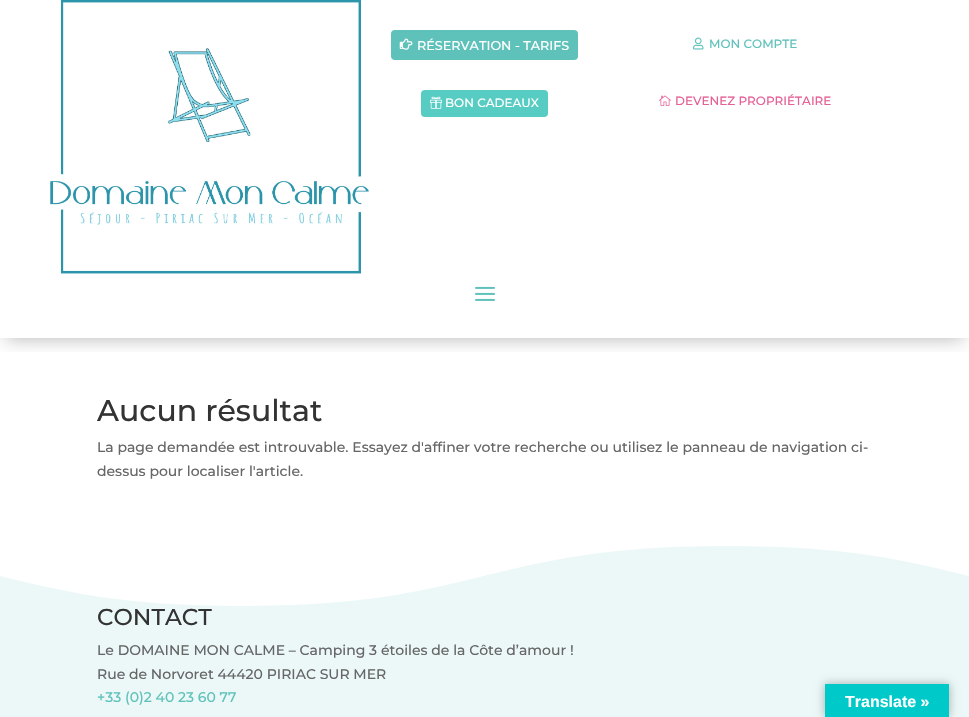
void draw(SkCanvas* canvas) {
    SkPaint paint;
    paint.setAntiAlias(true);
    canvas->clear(0xFFFFFFFF);
    canvas->save();
    canvas->clipRect(SkRect::MakeXYWH(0, 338, 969, 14));
    paint.setColor(0x4D000000);
    paint.setMaskFilter(SkMaskFilter::MakeBlur(kNormal_SkBlurStyle, 9));
    canvas->drawRect(SkRect::MakeXYWH(6, 12, 957, 326), paint);
    paint.setMaskFilter(nullptr);
    canvas->restore();
    canvas->drawImageRect(SkImages::DeferredFromEncodedData(SkData::MakeFromFileName("img1.png")), SkRect::MakeXYWH(50, 0, 319, 274), SkSamplingOptions());
    paint.setColor(0xFF5FC2BA);
    canvas->drawRoundRect(SkRect::MakeXYWH(391, 30, 187, 30), 4, 4, paint);
    canvas->drawImageRect(SkImages::DeferredFromEncodedData(SkData::MakeFromFileName("img2.png")), SkRect::MakeXYWH(399, 38, 14, 12), SkSamplingOptions());
    SkFont font1(fontMgr->matchFamilyStyle("Montserrat", SkFontStyle(500, SkFontStyle::kNormal_Width, SkFontStyle::kUpright_Slant)), 12.75f);
    font1.setSubpixel(true);
    paint.setColor(0xFFFFFFFF);
    canvas->drawString("RÉSERVATION - TARIFS", 417, 50, font1, paint);
    paint.setColor(0xFF57CCC2);
    canvas->drawRoundRect(SkRect::MakeXYWH(421, 90, 127, 27), 4, 4, paint);
    canvas->drawImageRect(SkImages::DeferredFromEncodedData(SkData::MakeFromFileName("img3.png")), SkRect::MakeXYWH(430, 96, 12, 13), SkSamplingOptions());
    SkFont font2(fontMgr->matchFamilyStyle("Montserrat", SkFontStyle(500, SkFontStyle::kNormal_Width, SkFontStyle::kUpright_Slant)), 12);
    font2.setSubpixel(true);
    paint.setColor(0xFFFFFFFF);
    canvas->drawString("BON CADEAUX", 445, 107, font2, paint);
    canvas->drawImageRect(SkImages::DeferredFromEncodedData(SkData::MakeFromFileName("img4.png")), SkRect::MakeXYWH(693, 37, 11, 13), SkSamplingOptions());
    paint.setColor(0xFF5FC2BA);
    canvas->drawString("MON COMPTE", 709, 48, font2, paint);
    canvas->drawImageRect(SkImages::DeferredFromEncodedData(SkData::MakeFromFileName("img5.png")), SkRect::MakeXYWH(659, 95, 12, 11), SkSamplingOptions());
    paint.setColor(0xFFE56095);
    canvas->drawString("DEVENEZ PROPRIÉTAIRE", 675, 105, font2, paint);
    canvas->drawImageRect(SkImages::DeferredFromEncodedData(SkData::MakeFromFileName("img6.png")), SkRect::MakeXYWH(475, 286, 20, 15), SkSamplingOptions());
    SkFont font3(fontMgr->matchFamilyStyle("Montserrat", SkFontStyle(500, SkFontStyle::kNormal_Width, SkFontStyle::kUpright_Slant)), 30);
    font3.setSubpixel(true);
    paint.setColor(0xFF333333);
    canvas->drawString("Aucun résultat", 97, 421, font3, paint);
    SkFont font4(fontMgr->matchFamilyStyle("Montserrat", SkFontStyle(500, SkFontStyle::kNormal_Width, SkFontStyle::kUpright_Slant)), 14);
    font4.setSubpixel(true);
    paint.setColor(0xFF666666);
    canvas->drawString("La page demandée est introuvable. Essayez d'affiner votre recherche ou utilisez le panneau de navigation ci-", 97, 452, font4, paint);
    canvas->drawString("dessus pour localiser l'article.", 97, 476, font4, paint);
    paint.setColor(0xFFEBF8F7);
    canvas->drawRect(SkRect::MakeXYWH(0, 546, 969, 171), paint);
    paint.setColor(0xFFFFFFFF);
    canvas->drawPath(SkPathBuilder().moveTo(727, 546).cubicTo(848, 546, 908, 561, 969, 576).lineTo(969, 526).lineTo(0, 526).lineTo(0, 576).cubicTo(61, 591, 121, 606, 242, 606).cubicTo(484, 606, 484, 546, 727, 546).close().detach(), paint);
    SkFont font5(fontMgr->matchFamilyStyle("Montserrat", SkFontStyle(500, SkFontStyle::kNormal_Width, SkFontStyle::kUpright_Slant)), 23);
    font5.setSubpixel(true);
    paint.setColor(0xFF333333);
    canvas->drawString("CONTACT", 97, 625, font5, paint);
    paint.setColor(0xFF666666);
    canvas->drawString("Le DOMAINE MON CALME – Camping 3 étoiles de la Côte d’amour !", 97, 655, font4, paint);
    canvas->drawString("Rue de Norvoret 44420 PIRIAC SUR MER", 97, 679, font4, paint);
    paint.setColor(0xFF5FC2BA);
    canvas->drawString("+33 (0)2 40 23 60 77", 97, 702, font4, paint);
    paint.setColor(0x4D000000);
    paint.setMaskFilter(SkMaskFilter::MakeBlur(kNormal_SkBlurStyle, 4.5f));
    canvas->drawRect(SkRect::MakeXYWH(825, 684, 124, 33), paint);
    paint.setMaskFilter(nullptr);
    paint.setColor(0xFF00C9C9);
    canvas->drawRect(SkRect::MakeXYWH(825, 684, 124, 33), paint);
    SkFont font6(fontMgr->matchFamilyStyle("Liberation Sans", SkFontStyle::Bold()), 16);
    font6.setSubpixel(true);
    paint.setColor(0xFFFFFFFF);
    canvas->drawString("Translate »", 845, 707, font6, paint);
}
